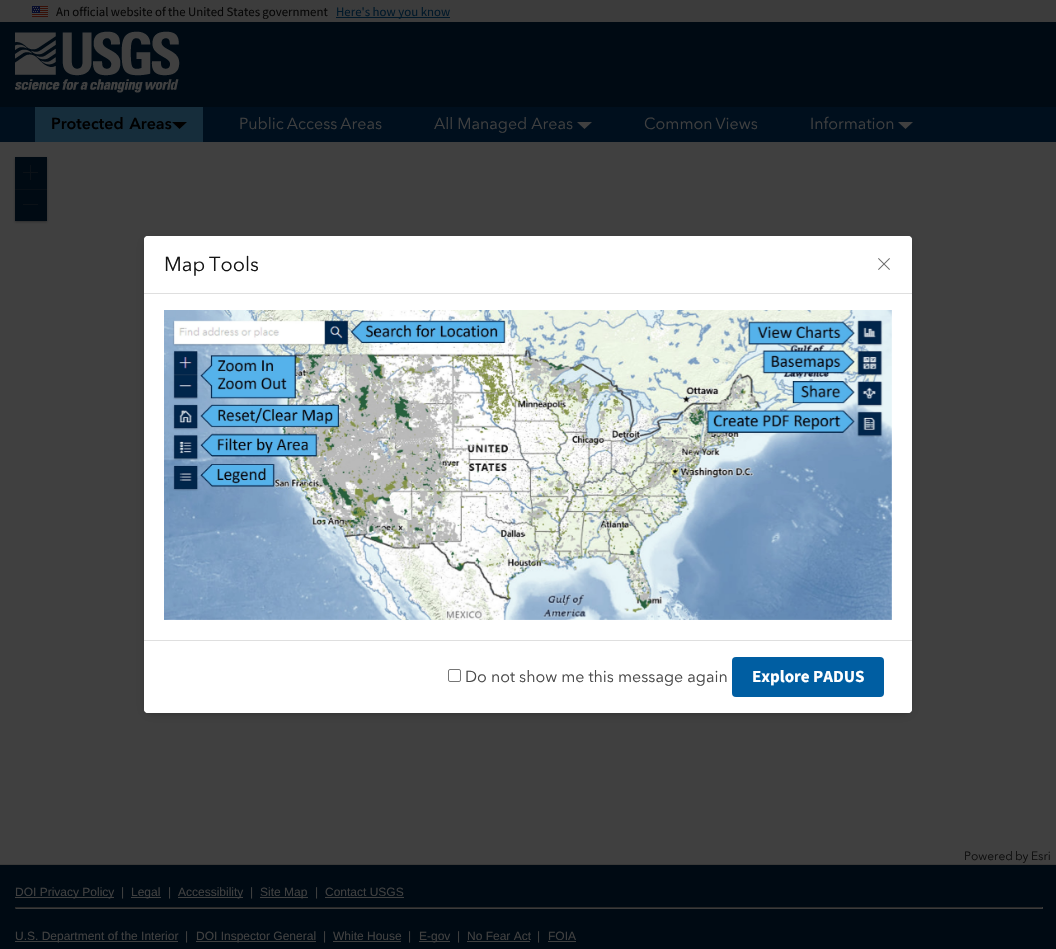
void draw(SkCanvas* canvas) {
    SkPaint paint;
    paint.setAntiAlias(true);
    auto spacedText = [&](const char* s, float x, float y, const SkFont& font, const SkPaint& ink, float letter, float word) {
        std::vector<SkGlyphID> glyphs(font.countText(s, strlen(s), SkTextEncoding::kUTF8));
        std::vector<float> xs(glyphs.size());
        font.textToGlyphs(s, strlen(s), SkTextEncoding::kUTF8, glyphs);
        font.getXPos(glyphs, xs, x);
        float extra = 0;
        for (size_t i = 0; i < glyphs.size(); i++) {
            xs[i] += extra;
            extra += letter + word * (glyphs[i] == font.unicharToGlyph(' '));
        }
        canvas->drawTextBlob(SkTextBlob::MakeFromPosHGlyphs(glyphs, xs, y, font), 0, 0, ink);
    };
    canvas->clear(0xFF404040);
    paint.setColor(0xFF3C3C3C);
    canvas->drawRect(SkRect::MakeXYWH(0, 0, 1056, 22), paint);
    canvas->drawImageRect(SkImages::DeferredFromEncodedData(SkData::MakeFromFileName("img1.png")), SkRect::MakeXYWH(32, 6, 16, 11), SkSamplingOptions());
    SkFont font1(fontMgr->matchFamilyStyle("Source Sans Pro", SkFontStyle::Normal()), 12.8f);
    font1.setSubpixel(true);
    paint.setColor(0xFF070707);
    spacedText("An official website of the United States government", 56, 16, font1, paint, 0, -0.25f);
    paint.setColor(0xFF001829);
    canvas->drawRect(SkRect::MakeXYWH(336, 17, 114, 1), paint);
    canvas->drawString("Here's how you know", 336, 16, font1, paint);
    paint.setColor(0xFF000A13);
    canvas->drawRect(SkRect::MakeXYWH(0, 22, 1056, 85), paint);
    canvas->drawImageRect(SkImages::DeferredFromEncodedData(SkData::MakeFromFileName("img2.png")), SkRect::MakeXYWH(15, 31, 165, 62), SkSamplingOptions());
    paint.setColor(0xFF000F1D);
    canvas->drawRect(SkRect::MakeXYWH(0, 107, 1056, 35), paint);
    paint.setColor(0xFF162D3B);
    canvas->drawRect(SkRect::MakeXYWH(35, 107, 168, 35), paint);
    SkFont font2(fontMgr->matchFamilyStyle("Avenir Next", SkFontStyle::Bold()), 16);
    font2.setSubpixel(true);
    paint.setColor(0xFF000000);
    spacedText("Protected Areas", 51, 129, font2, paint, 0, 2);
    canvas->drawPath(SkPathBuilder().moveTo(172, 122).lineTo(179.5f, 129).lineTo(187, 122).close().detach(), paint);
    SkFont font3(fontMgr->matchFamilyStyle("Avenir Next", SkFontStyle::Normal()), 16);
    font3.setSubpixel(true);
    paint.setColor(0xFF404040);
    spacedText("Public Access Areas", 239, 129, font3, paint, 0, -1);
    canvas->drawString("All Managed Areas", 434, 129, font3, paint);
    canvas->drawPath(SkPathBuilder().moveTo(577, 122).lineTo(584.5f, 129).lineTo(592, 122).close().detach(), paint);
    spacedText("Common Views", 644, 129, font3, paint, 0, -1);
    canvas->drawString("Information", 810, 129, font3, paint);
    canvas->drawPath(SkPathBuilder().moveTo(898, 122).lineTo(905.5f, 129).lineTo(913, 122).close().detach(), paint);
    paint.setColor(0x29000000);
    paint.setMaskFilter(SkMaskFilter::MakeBlur(kNormal_SkBlurStyle, 2));
    canvas->drawRoundRect(SkRect::MakeXYWH(146, 240, 764, 473), 2, 2, paint);
    paint.setMaskFilter(nullptr);
    paint.setColor(0x33000000);
    paint.setMaskFilter(SkMaskFilter::MakeBlur(kNormal_SkBlurStyle, 6));
    canvas->drawRect(SkRect::MakeXYWH(148, 242, 760, 469), paint);
    paint.setMaskFilter(nullptr);
    paint.setColor(0xFFFFFFFF);
    canvas->drawRoundRect(SkRect::MakeXYWH(144, 236, 768, 477), 4, 4, paint);
    canvas->drawPath(SkPathBuilder().moveTo(148, 236).lineTo(908, 236).cubicTo(910, 236, 912, 238, 912, 240).lineTo(912, 293).lineTo(144, 293).lineTo(144, 240).cubicTo(144, 238, 146, 236, 148, 236).close().detach(), paint);
    paint.setColor(0xFFDFDFDF);
    canvas->drawRect(SkRect::MakeXYWH(144, 293, 768, 1), paint);
    SkFont font4(fontMgr->matchFamilyStyle("Avenir Next", SkFontStyle::Normal()), 20);
    font4.setSubpixel(true);
    paint.setColor(0xFF151515);
    spacedText("Map Tools", 164, 271, font4, paint, 0, -1);
    canvas->drawImageRect(SkImages::DeferredFromEncodedData(SkData::MakeFromFileName("img3.png")), SkRect::MakeXYWH(878, 258, 12, 12), SkSamplingOptions());
    canvas->drawImageRect(SkImages::DeferredFromEncodedData(SkData::MakeFromFileName("img4.png")), SkRect::MakeXYWH(164, 310, 728, 310), SkSamplingOptions());
    paint.setColor(0xFFFFFFFF);
    canvas->drawPath(SkPathBuilder().moveTo(144, 641).lineTo(912, 641).lineTo(912, 709).cubicTo(912, 711, 910, 713, 908, 713).lineTo(148, 713).cubicTo(146, 713, 144, 711, 144, 709).close().detach(), paint);
    paint.setColor(0xFFDFDFDF);
    canvas->drawRect(SkRect::MakeXYWH(144, 640, 768, 1), paint);
    paint.setStyle(SkPaint::kStroke_Style);
    paint.setStrokeWidth(1);
    paint.setColor(0xFF767676);
    canvas->drawRoundRect(SkRect::MakeXYWH(448.5f, 669.5f, 12, 12), 1.5f, 1.5f, paint);
    paint.setStyle(SkPaint::kFill_Style);
    paint.setColor(0xFF4A4A4A);
    canvas->drawString("Do not show me this message again", 465, 682, font3, paint);
    paint.setColor(0xFF005EA2);
    canvas->drawRoundRect(SkRect::MakeXYWH(732, 657, 152, 40), 4, 4, paint);
    SkFont font5(fontMgr->matchFamilyStyle("Source Sans Pro", SkFontStyle::Bold()), 17);
    font5.setSubpixel(true);
    paint.setColor(0xFFFFFFFF);
    canvas->drawString("Explore PADUS", 752, 682, font5, paint);
    paint.setColor(0x4D000000);
    paint.setMaskFilter(SkMaskFilter::MakeBlur(kNormal_SkBlurStyle, 1));
    canvas->drawRect(SkRect::MakeXYWH(15, 158, 32, 64), paint);
    paint.setMaskFilter(nullptr);
    paint.setColor(0xFF000A13);
    canvas->drawRect(SkRect::MakeXYWH(15, 157, 32, 32), paint);
    canvas->drawImageRect(SkImages::DeferredFromEncodedData(SkData::MakeFromFileName("img5.png")), SkRect::MakeXYWH(23, 165, 15, 15), SkSamplingOptions());
    canvas->drawRect(SkRect::MakeXYWH(15, 190, 32, 31), paint);
    paint.setColor(0xFF080F16);
    canvas->drawRect(SkRect::MakeXYWH(15, 189, 32, 1), paint);
    paint.setColor(0xFF0B1117);
    canvas->drawRect(SkRect::MakeXYWH(23, 204, 15, 1), paint);
    SkFont font6(fontMgr->matchFamilyStyle("Avenir Next", SkFontStyle::Normal()), 12);
    font6.setSubpixel(true);
    paint.setColor(0xFF0D0D0D);
    spacedText("Powered by", 964, 860, font6, paint, 0, -1);
    canvas->drawString("Esri", 1031, 860, font6, paint);
    paint.setColor(0xFF000A13);
    canvas->drawRect(SkRect::MakeXYWH(0, 865, 1056, 84), paint);
    paint.setColor(0xFF393939);
    canvas->drawRect(SkRect::MakeXYWH(0, 864, 1056, 1), paint);
    paint.setColor(0xFF404040);
    canvas->drawRect(SkRect::MakeXYWH(15, 897, 99, 1), paint);
    SkFont font7(fontMgr->matchFamilyStyle("Liberation Sans", SkFontStyle::Normal()), 12);
    font7.setSubpixel(true);
    canvas->drawString("DOI Privacy Policy", 15, 896, font7, paint);
    canvas->drawString("|", 121, 896, font7, paint);
    canvas->drawRect(SkRect::MakeXYWH(131, 897, 30, 1), paint);
    canvas->drawString("Legal", 131, 896, font7, paint);
    canvas->drawString("|", 168, 896, font7, paint);
    canvas->drawRect(SkRect::MakeXYWH(178, 897, 65, 1), paint);
    canvas->drawString("Accessibility", 178, 896, font7, paint);
    canvas->drawString("|", 250, 896, font7, paint);
    canvas->drawRect(SkRect::MakeXYWH(260, 897, 48, 1), paint);
    canvas->drawString("Site Map", 260, 896, font7, paint);
    canvas->drawString("|", 315, 896, font7, paint);
    canvas->drawString("Contact USGS", 325, 896, font7, paint);
    canvas->drawRect(SkRect::MakeXYWH(325, 897, 79, 1), paint);
    paint.setColor(0xFF282828);
    canvas->drawRect(SkRect::MakeXYWH(15, 907, 1028, 1), paint);
    paint.setColor(0xFF3C3C3C);
    canvas->drawRect(SkRect::MakeXYWH(1042, 907, 1, 2), paint);
    canvas->drawRect(SkRect::MakeXYWH(15, 908, 1028, 1), paint);
    paint.setColor(0xFF282828);
    canvas->drawRect(SkRect::MakeXYWH(15, 907, 1, 2), paint);
    paint.setColor(0xFF404040);
    canvas->drawRect(SkRect::MakeXYWH(15, 941, 163, 1), paint);
    canvas->drawString("U.S. Department of the Interior", 15, 940, font7, paint);
    canvas->drawString("|", 185, 940, font7, paint);
    canvas->drawRect(SkRect::MakeXYWH(196, 941, 120, 1), paint);
    canvas->drawString("DOI Inspector General", 196, 940, font7, paint);
    canvas->drawString("|", 323, 940, font7, paint);
    canvas->drawString("White House", 333, 940, font7, paint);
    canvas->drawRect(SkRect::MakeXYWH(333, 941, 68, 1), paint);
    canvas->drawString("|", 408, 940, font7, paint);
    canvas->drawRect(SkRect::MakeXYWH(419, 941, 31, 1), paint);
    canvas->drawString("E-gov", 419, 940, font7, paint);
    canvas->drawString("|", 457, 940, font7, paint);
    canvas->drawString("No Fear Act", 467, 940, font7, paint);
    canvas->drawRect(SkRect::MakeXYWH(467, 941, 63, 1), paint);
    canvas->drawString("|", 537, 940, font7, paint);
    canvas->drawString("FOIA", 548, 940, font7, paint);
    canvas->drawRect(SkRect::MakeXYWH(548, 941, 28, 1), paint);
}
